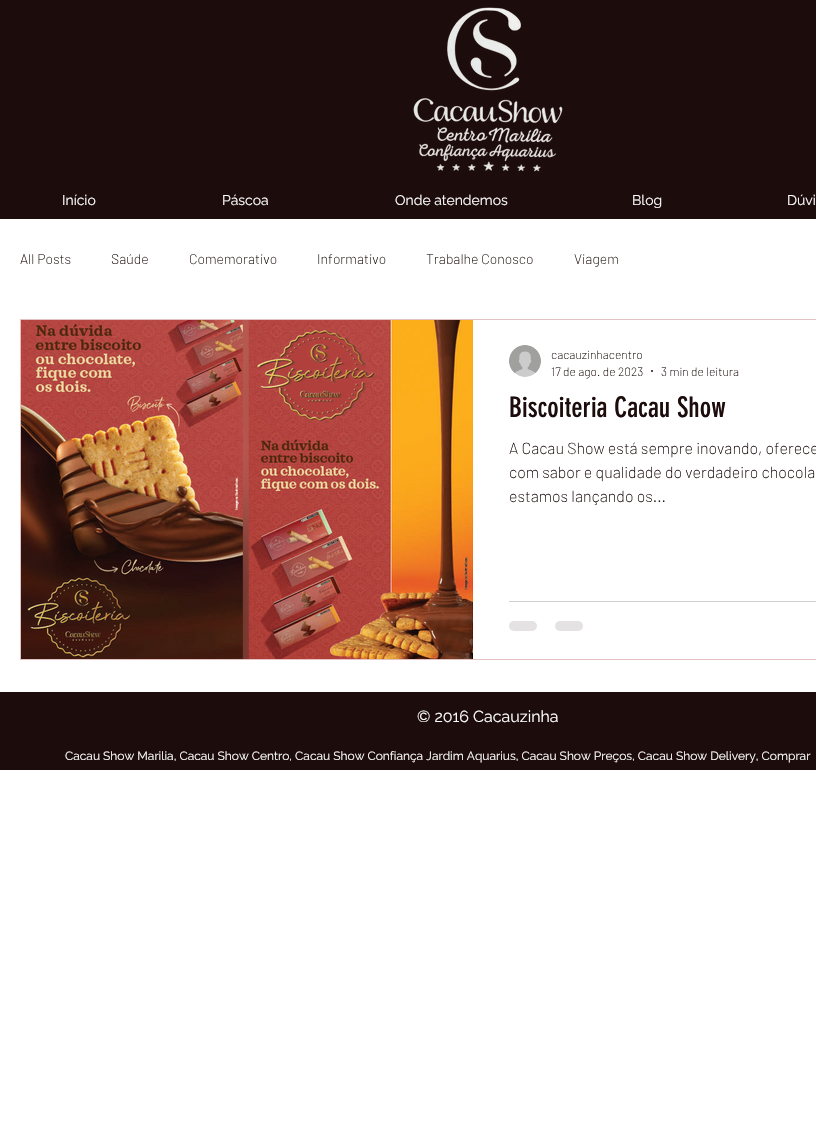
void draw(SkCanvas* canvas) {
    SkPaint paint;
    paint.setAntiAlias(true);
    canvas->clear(0xFFFFFFFF);
    paint.setColor(0xFF1C0C0C);
    canvas->drawRect(SkRect::MakeXYWH(0, 0, 816, 219), paint);
    canvas->drawImageRect(SkImages::DeferredFromEncodedData(SkData::MakeFromFileName("img1.png")), SkRect::MakeXYWH(413, 7, 150, 165), SkSamplingOptions());
    SkFont font1(fontMgr->matchFamilyStyle("Raleway", SkFontStyle::Normal()), 14);
    font1.setSubpixel(true);
    paint.setColor(0xFFFFFFFF);
    canvas->drawString("Início", 62, 205, font1, paint);
    canvas->drawString("Páscoa", 222, 205, font1, paint);
    canvas->drawString("Onde atendemos", 395, 205, font1, paint);
    canvas->drawString("Blog", 632, 205, font1, paint);
    canvas->drawString("Dúvi", 787, 205, font1, paint);
    SkFont font2(fontMgr->matchFamilyStyle("Barlow", SkFontStyle(200, SkFontStyle::kNormal_Width, SkFontStyle::kUpright_Slant)), 14);
    font2.setSubpixel(true);
    paint.setColor(0xFF1C0C0C);
    canvas->drawString("All Posts", 20, 264, font2, paint);
    canvas->drawString("Saúde", 111, 264, font2, paint);
    canvas->drawString("Comemorativo", 189, 264, font2, paint);
    canvas->drawString("Informativo", 317, 264, font2, paint);
    canvas->drawString("Trabalhe Conosco", 426, 264, font2, paint);
    canvas->drawString("Viagem", 574, 264, font2, paint);
    paint.setStyle(SkPaint::kStroke_Style);
    paint.setStrokeWidth(1);
    paint.setColor(0xFFE5C2C2);
    canvas->drawRect(SkRect::MakeXYWH(20.5f, 319.5f, 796, 340), paint);
    canvas->drawImageRect(SkImages::DeferredFromEncodedData(SkData::MakeFromFileName("img3.png")), SkRect::MakeXYWH(240, 320, 11, 339), SkSamplingOptions());
    canvas->drawImageRect(SkImages::DeferredFromEncodedData(SkData::MakeFromFileName("img2.png")), SkRect::MakeXYWH(21, 320, 452, 339), SkSamplingOptions());
    canvas->drawImageRect(SkImages::DeferredFromEncodedData(SkData::MakeFromFileName("img4.png")), SkRect::MakeXYWH(509, 345, 32, 32), SkSamplingOptions());
    SkFont font3(fontMgr->matchFamilyStyle("Barlow", SkFontStyle(200, SkFontStyle::kNormal_Width, SkFontStyle::kUpright_Slant)), 12);
    font3.setSubpixel(true);
    paint.setStyle(SkPaint::kFill_Style);
    paint.setColor(0xFF1C0C0C);
    canvas->drawString("cacauzinhacentro", 551, 359, font3, paint);
    canvas->drawString("17 de ago. de 2023", 551, 376, font3, paint);
    canvas->drawCircle(652, 371, 1, paint);
    canvas->drawString("3 min de leitura", 661, 376, font3, paint);
    SkFont font4(fontMgr->matchFamilyStyle("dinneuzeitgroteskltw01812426", SkFontStyle::Normal()), 28);
    font4.setSubpixel(true);
    canvas->drawString("Biscoiteria Cacau Show", 509, 417, font4, paint);
    SkFont font5(fontMgr->matchFamilyStyle("Barlow", SkFontStyle(200, SkFontStyle::kNormal_Width, SkFontStyle::kUpright_Slant)), 16);
    font5.setSubpixel(true);
    canvas->drawString("A Cacau Show está sempre inovando, oferece", 509, 454, font5, paint);
    canvas->drawString("com sabor e qualidade do verdadeiro chocola", 509, 478, font5, paint);
    canvas->drawString("estamos lançando os...", 509, 502, font5, paint);
    paint.setColor(0xFFD2CECE);
    canvas->drawRect(SkRect::MakeXYWH(509, 601, 307, 1), paint);
    paint.setColor(0xFFE4E2E2);
    canvas->drawRoundRect(SkRect::MakeXYWH(509, 621, 28, 10), 5, 5, paint);
    canvas->drawRoundRect(SkRect::MakeXYWH(555, 621, 28, 10), 5, 5, paint);
    paint.setColor(0xFF1C0C0C);
    canvas->drawRect(SkRect::MakeXYWH(0, 692, 816, 78), paint);
    SkFont font6(fontMgr->matchFamilyStyle("Raleway", SkFontStyle::Normal()), 16);
    font6.setSubpixel(true);
    paint.setColor(0xFFFFFFFF);
    canvas->drawString("© 2016 Cacauzinha", 417, 722, font6, paint);
    SkFont font7(fontMgr->matchFamilyStyle("Raleway", SkFontStyle::Normal()), 12);
    font7.setSubpixel(true);
    canvas->drawString("Cacau Show Marilia, Cacau Show Centro, Cacau Show Confiança Jardim Aquarius, Cacau Show Preços, Cacau Show Delivery, Comprar", 65, 760, font7, paint);
}
